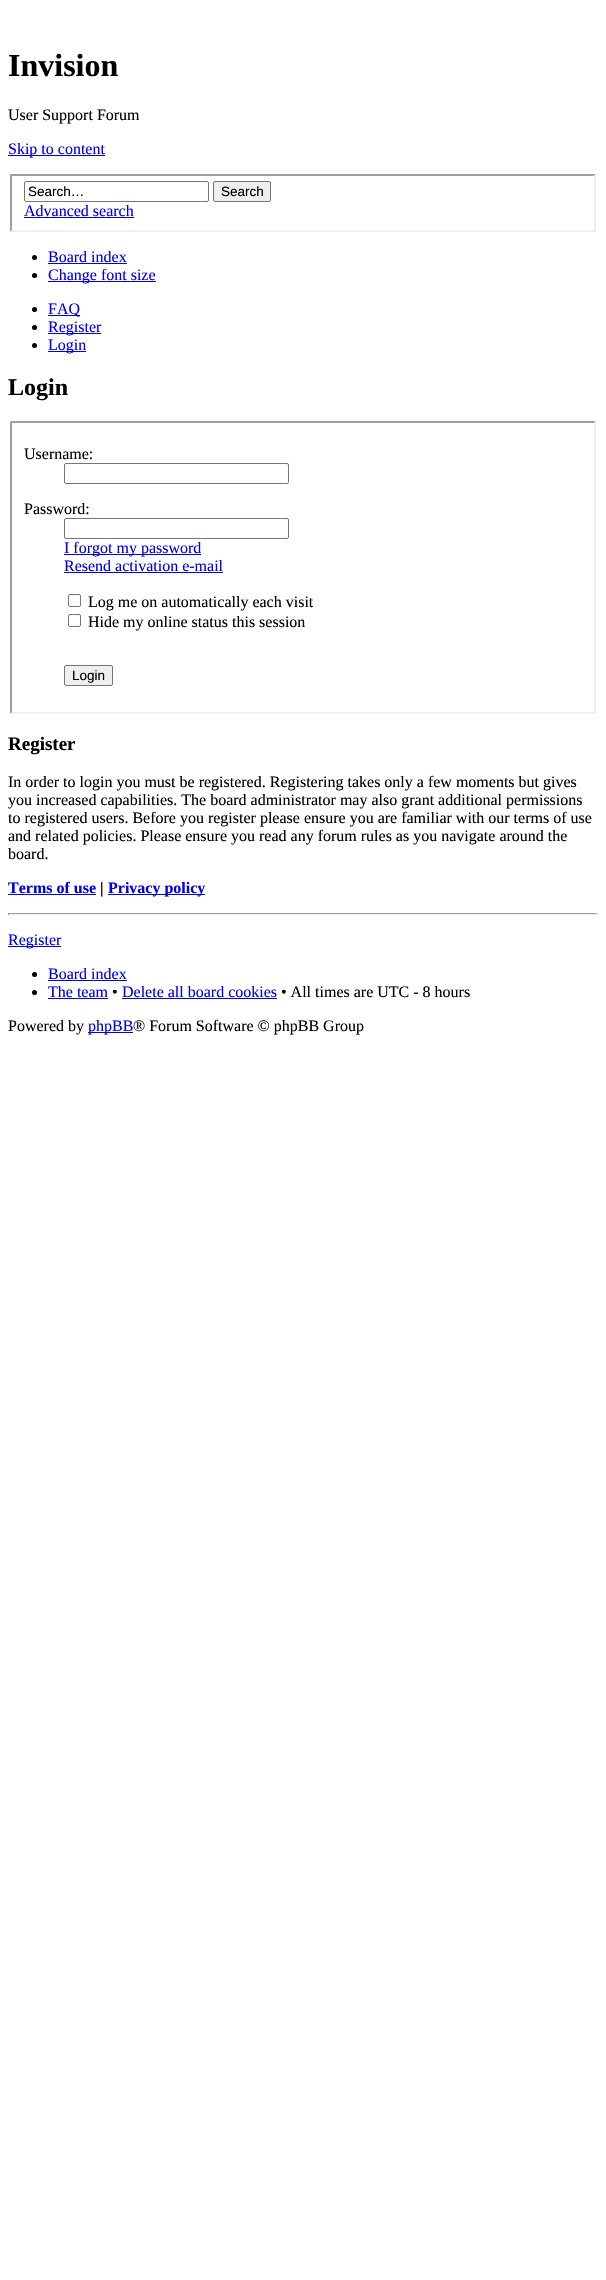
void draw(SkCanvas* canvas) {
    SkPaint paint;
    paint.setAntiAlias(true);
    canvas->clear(0xFFFFFFFF);
    SkFont font1(fontMgr->matchFamilyStyle("Liberation Serif", SkFontStyle::Bold()), 32);
    font1.setSubpixel(true);
    paint.setColor(0xFF000000);
    canvas->drawString("Invision", 8, 76, font1, paint);
    SkFont font2(fontMgr->matchFamilyStyle("Liberation Serif", SkFontStyle::Normal()), 16);
    font2.setSubpixel(true);
    canvas->drawString("User Support Forum", 8, 120, font2, paint);
    paint.setColor(0xFF0000EE);
    canvas->drawRect(SkRect::MakeXYWH(8, 155, 97, 1), paint);
    canvas->drawString("Skip to content", 8, 154, font2, paint);
    paint.setColor(0xFF9F9F9F);
    canvas->drawPath(SkPathBuilder().moveTo(10, 174).lineTo(596, 174).lineTo(594, 176).lineTo(12, 176).close().detach(), paint);
    paint.setColor(0xFFEFEFEF);
    canvas->drawPath(SkPathBuilder().moveTo(596, 174).lineTo(596, 232).lineTo(594, 230).lineTo(594, 176).close().detach(), paint);
    canvas->drawPath(SkPathBuilder().moveTo(596, 232).lineTo(10, 232).lineTo(12, 230).lineTo(594, 230).close().detach(), paint);
    paint.setColor(0xFF9F9F9F);
    canvas->drawPath(SkPathBuilder().moveTo(10, 232).lineTo(10, 174).lineTo(12, 176).lineTo(12, 230).close().detach(), paint);
    paint.setStyle(SkPaint::kStroke_Style);
    paint.setStrokeWidth(1);
    paint.setColor(0xFF767676);
    canvas->drawRoundRect(SkRect::MakeXYWH(24.5f, 181.5f, 184, 20), 1.5f, 1.5f, paint);
    SkFont font3(fontMgr->matchFamilyStyle("Liberation Sans", SkFontStyle::Normal()), 13.5f);
    font3.setSubpixel(true);
    paint.setStyle(SkPaint::kFill_Style);
    paint.setColor(0xFF000000);
    canvas->drawString("Search…", 28, 196, font3, paint);
    paint.setColor(0xFFEFEFEF);
    canvas->drawRoundRect(SkRect::MakeXYWH(213.5f, 181.5f, 57, 20), 1.5f, 1.5f, paint);
    paint.setStyle(SkPaint::kStroke_Style);
    paint.setColor(0xFF767676);
    canvas->drawRoundRect(SkRect::MakeXYWH(213.5f, 181.5f, 57, 20), 1.5f, 1.5f, paint);
    paint.setStyle(SkPaint::kFill_Style);
    paint.setColor(0xFF000000);
    canvas->drawString("Search", 221, 196, font3, paint);
    paint.setColor(0xFF0000EE);
    canvas->drawString("Advanced search", 24, 216, font2, paint);
    canvas->drawRect(SkRect::MakeXYWH(24, 217, 110, 1), paint);
    paint.setColor(0xFF000000);
    canvas->drawCircle(34.5f, 257.5f, 2.5f, paint);
    paint.setColor(0xFF0000EE);
    canvas->drawString("Board index", 48, 262, font2, paint);
    canvas->drawRect(SkRect::MakeXYWH(48, 263, 79, 1), paint);
    paint.setColor(0xFF000000);
    canvas->drawCircle(34.5f, 275.5f, 2.5f, paint);
    paint.setColor(0xFF0000EE);
    canvas->drawRect(SkRect::MakeXYWH(48, 281, 108, 1), paint);
    canvas->drawString("Change font size", 48, 280, font2, paint);
    paint.setColor(0xFF000000);
    canvas->drawCircle(34.5f, 309.5f, 2.5f, paint);
    paint.setColor(0xFF0000EE);
    canvas->drawRect(SkRect::MakeXYWH(48, 315, 32, 1), paint);
    canvas->drawString("FAQ", 48, 314, font2, paint);
    paint.setColor(0xFF000000);
    canvas->drawCircle(34.5f, 327.5f, 2.5f, paint);
    paint.setColor(0xFF0000EE);
    canvas->drawRect(SkRect::MakeXYWH(48, 333, 53, 1), paint);
    canvas->drawString("Register", 48, 332, font2, paint);
    paint.setColor(0xFF000000);
    canvas->drawCircle(34.5f, 345.5f, 2.5f, paint);
    paint.setColor(0xFF0000EE);
    canvas->drawRect(SkRect::MakeXYWH(48, 351, 38, 1), paint);
    canvas->drawString("Login", 48, 350, font2, paint);
    SkFont font4(fontMgr->matchFamilyStyle("Liberation Serif", SkFontStyle::Bold()), 24);
    font4.setSubpixel(true);
    paint.setColor(0xFF000000);
    canvas->drawString("Login", 8, 395, font4, paint);
    paint.setColor(0xFF9F9F9F);
    canvas->drawPath(SkPathBuilder().moveTo(10, 421).lineTo(596, 421).lineTo(594, 423).lineTo(12, 423).close().detach(), paint);
    paint.setColor(0xFFEFEFEF);
    canvas->drawPath(SkPathBuilder().moveTo(596, 421).lineTo(596, 714).lineTo(594, 712).lineTo(594, 423).close().detach(), paint);
    canvas->drawPath(SkPathBuilder().moveTo(596, 714).lineTo(10, 714).lineTo(12, 712).lineTo(594, 712).close().detach(), paint);
    paint.setColor(0xFF9F9F9F);
    canvas->drawPath(SkPathBuilder().moveTo(10, 714).lineTo(10, 421).lineTo(12, 423).lineTo(12, 712).close().detach(), paint);
    paint.setColor(0xFF000000);
    canvas->drawString("Username:", 24, 459, font2, paint);
    paint.setStyle(SkPaint::kStroke_Style);
    paint.setColor(0xFF767676);
    canvas->drawRoundRect(SkRect::MakeXYWH(64.5f, 463.5f, 224, 20), 1.5f, 1.5f, paint);
    paint.setStyle(SkPaint::kFill_Style);
    paint.setColor(0xFF000000);
    canvas->drawString("Password:", 24, 514, font2, paint);
    paint.setStyle(SkPaint::kStroke_Style);
    paint.setColor(0xFF767676);
    canvas->drawRoundRect(SkRect::MakeXYWH(64.5f, 518.5f, 224, 20), 1.5f, 1.5f, paint);
    paint.setStyle(SkPaint::kFill_Style);
    paint.setColor(0xFF0000EE);
    canvas->drawRect(SkRect::MakeXYWH(64, 554, 137, 1), paint);
    canvas->drawString("I forgot my password", 64, 553, font2, paint);
    canvas->drawString("Resend activation e-mail", 64, 571, font2, paint);
    canvas->drawRect(SkRect::MakeXYWH(64, 572, 159, 1), paint);
    paint.setStyle(SkPaint::kStroke_Style);
    paint.setColor(0xFF767676);
    canvas->drawRoundRect(SkRect::MakeXYWH(68.5f, 594.5f, 12, 12), 1.5f, 1.5f, paint);
    paint.setStyle(SkPaint::kFill_Style);
    paint.setColor(0xFF000000);
    canvas->drawString("Log me on automatically each visit", 88, 607, font2, paint);
    paint.setStyle(SkPaint::kStroke_Style);
    paint.setColor(0xFF767676);
    canvas->drawRoundRect(SkRect::MakeXYWH(68.5f, 614.5f, 12, 12), 1.5f, 1.5f, paint);
    paint.setStyle(SkPaint::kFill_Style);
    paint.setColor(0xFF000000);
    canvas->drawString("Hide my online status this session", 88, 627, font2, paint);
    paint.setColor(0xFFEFEFEF);
    canvas->drawRoundRect(SkRect::MakeXYWH(64.5f, 665.5f, 48, 20), 1.5f, 1.5f, paint);
    paint.setStyle(SkPaint::kStroke_Style);
    paint.setColor(0xFF767676);
    canvas->drawRoundRect(SkRect::MakeXYWH(64.5f, 665.5f, 48, 20), 1.5f, 1.5f, paint);
    paint.setStyle(SkPaint::kFill_Style);
    paint.setColor(0xFF000000);
    canvas->drawString("Login", 72, 680, font3, paint);
    SkFont font5(fontMgr->matchFamilyStyle("Liberation Serif", SkFontStyle::Bold()), 19);
    font5.setSubpixel(true);
    canvas->drawString("Register", 8, 750, font5, paint);
    canvas->drawString("In order to login you must be registered. Registering takes only a few moments but gives", 8, 787, font2, paint);
    canvas->drawString("you increased capabilities. The board administrator may also grant additional permissions", 8, 805, font2, paint);
    canvas->drawString("to registered users. Before you register please ensure you are familiar with our terms of use", 8, 823, font2, paint);
    canvas->drawString("and related policies. Please ensure you read any forum rules as you navigate around the", 8, 841, font2, paint);
    canvas->drawString("board.", 8, 859, font2, paint);
    SkFont font6(fontMgr->matchFamilyStyle("Liberation Serif", SkFontStyle::Bold()), 16);
    font6.setSubpixel(true);
    paint.setColor(0xFF0000EE);
    canvas->drawString("Terms of use", 8, 893, font6, paint);
    canvas->drawRect(SkRect::MakeXYWH(8, 894, 88, 1), paint);
    paint.setColor(0xFF000000);
    canvas->drawString("|", 100, 893, font6, paint);
    paint.setColor(0xFF0000EE);
    canvas->drawRect(SkRect::MakeXYWH(108, 894, 97, 1), paint);
    canvas->drawString("Privacy policy", 108, 893, font6, paint);
    paint.setColor(0xFF9F9F9F);
    canvas->drawRect(SkRect::MakeXYWH(8, 913, 590, 1), paint);
    paint.setColor(0xFFEEEEEE);
    canvas->drawRect(SkRect::MakeXYWH(597, 913, 1, 2), paint);
    canvas->drawRect(SkRect::MakeXYWH(8, 914, 590, 1), paint);
    paint.setColor(0xFF9F9F9F);
    canvas->drawRect(SkRect::MakeXYWH(8, 913, 1, 2), paint);
    paint.setColor(0xFF0000EE);
    canvas->drawRect(SkRect::MakeXYWH(8, 946, 53, 1), paint);
    canvas->drawString("Register", 8, 945, font2, paint);
    paint.setColor(0xFF000000);
    canvas->drawCircle(34.5f, 974.5f, 2.5f, paint);
    paint.setColor(0xFF0000EE);
    canvas->drawString("Board index", 48, 979, font2, paint);
    canvas->drawRect(SkRect::MakeXYWH(48, 980, 79, 1), paint);
    paint.setColor(0xFF000000);
    canvas->drawCircle(34.5f, 992.5f, 2.5f, paint);
    paint.setColor(0xFF0000EE);
    canvas->drawString("The team", 48, 997, font2, paint);
    canvas->drawRect(SkRect::MakeXYWH(48, 998, 60, 1), paint);
    paint.setColor(0xFF000000);
    canvas->drawString("•", 112, 997, font2, paint);
    paint.setColor(0xFF0000EE);
    canvas->drawString("Delete all board cookies", 122, 997, font2, paint);
    canvas->drawRect(SkRect::MakeXYWH(122, 998, 155, 1), paint);
    paint.setColor(0xFF000000);
    canvas->drawString("• All times are UTC - 8 hours", 281, 997, font2, paint);
    canvas->drawString("Powered by", 8, 1031, font2, paint);
    paint.setColor(0xFF0000EE);
    canvas->drawRect(SkRect::MakeXYWH(88, 1032, 45, 1), paint);
    canvas->drawString("phpBB", 88, 1031, font2, paint);
    paint.setColor(0xFF000000);
    canvas->drawString("® Forum Software © phpBB Group", 133, 1031, font2, paint);
}
